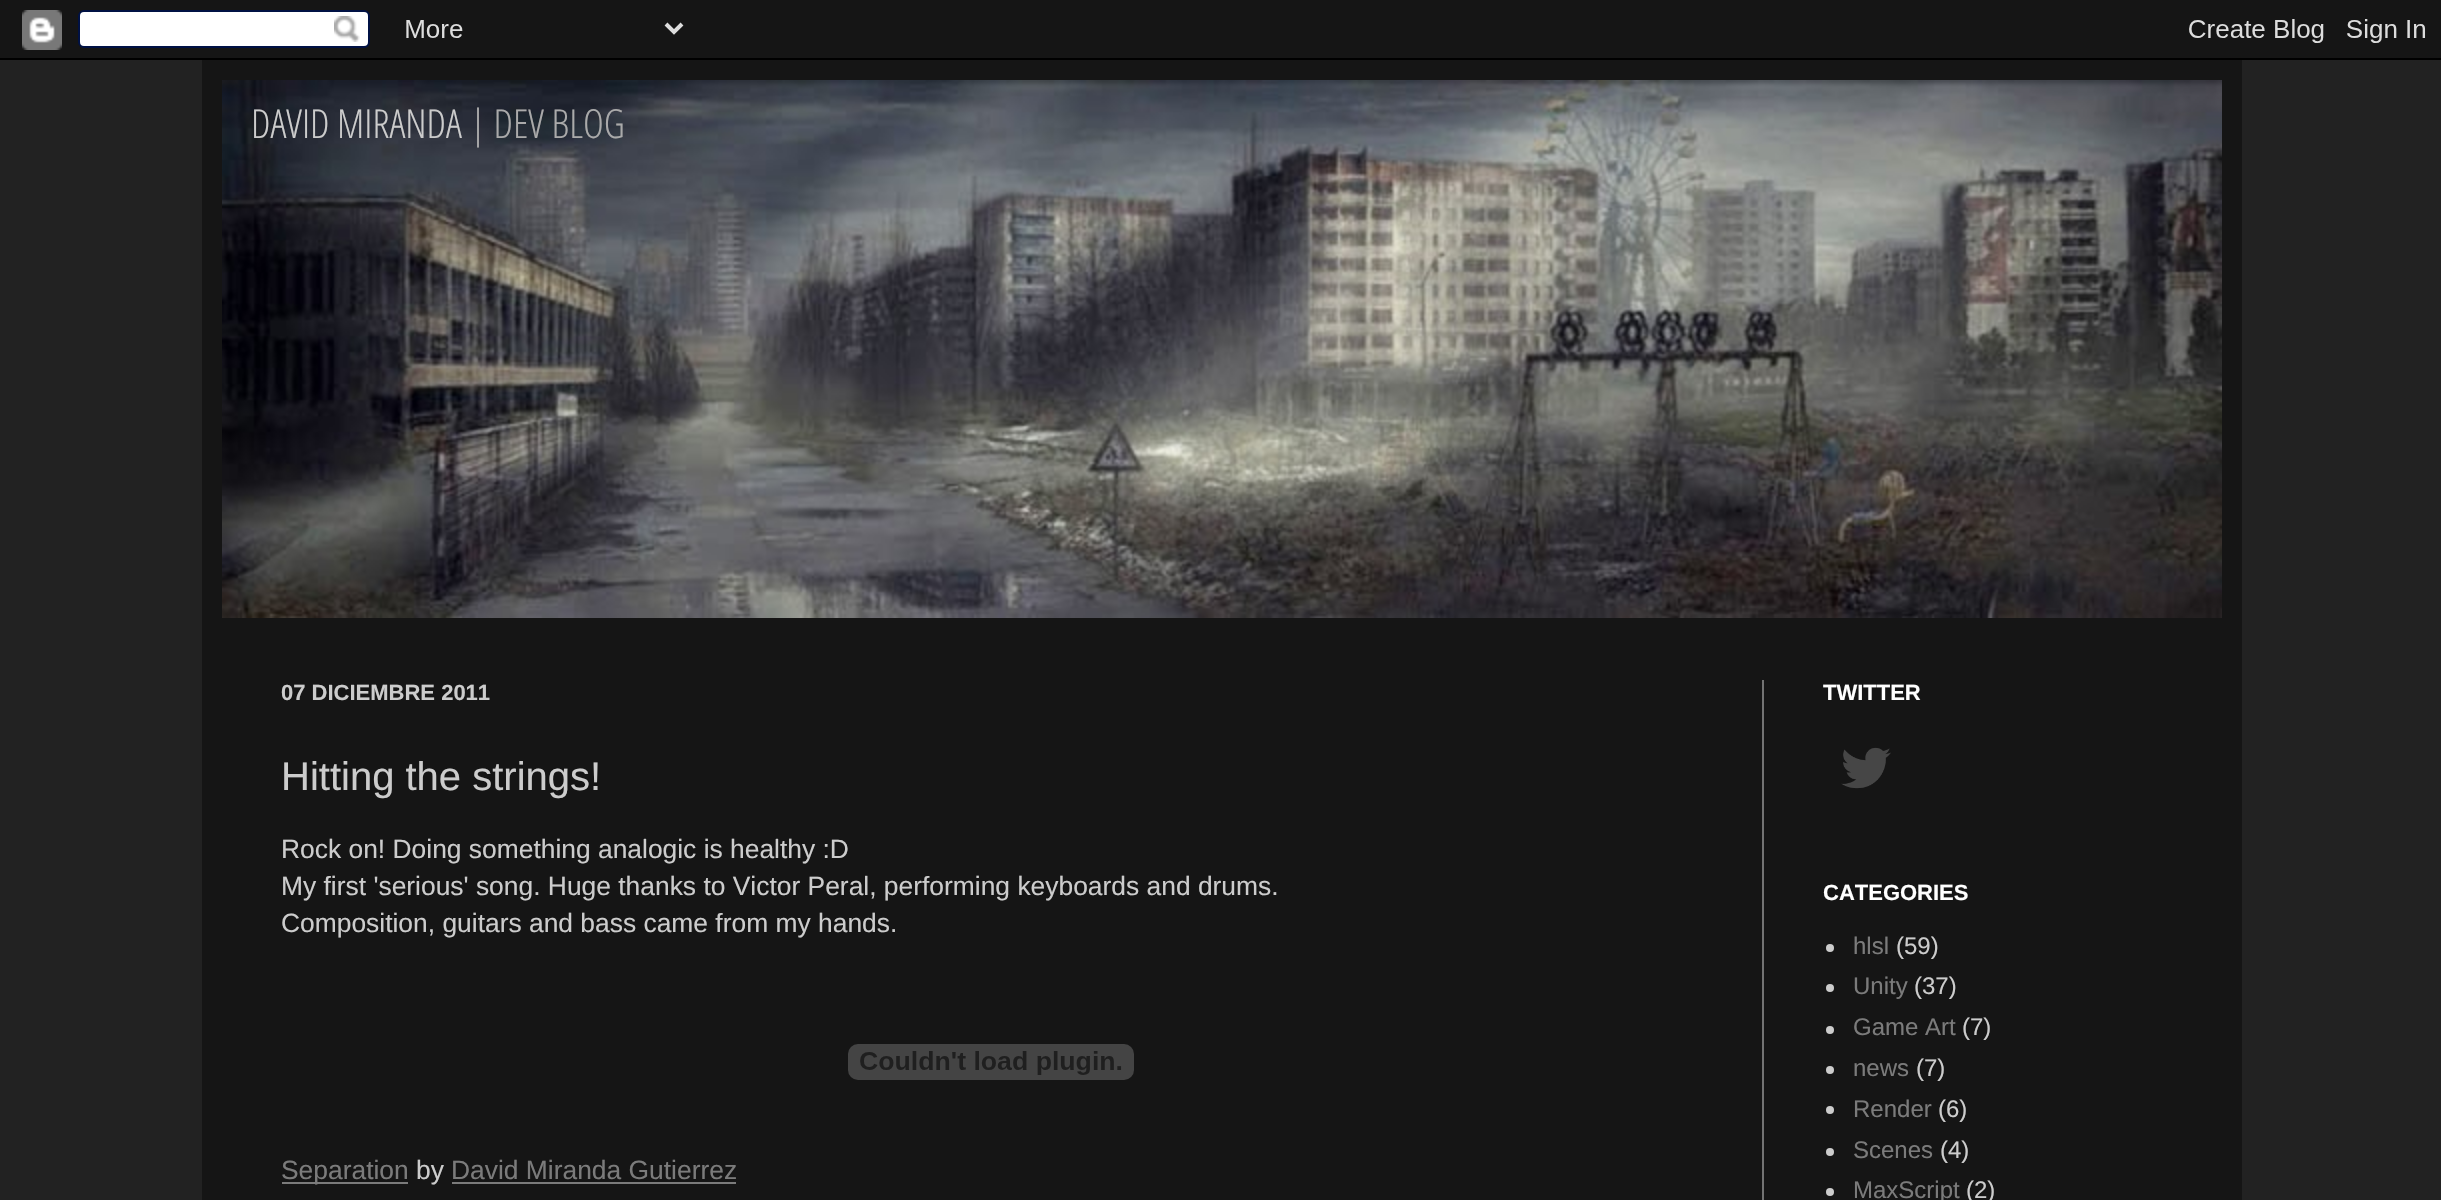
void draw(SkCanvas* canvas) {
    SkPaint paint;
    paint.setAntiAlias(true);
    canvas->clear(0xFF222222);
    canvas->drawImageRect(SkImages::DeferredFromEncodedData(SkData::MakeFromFileName("img1.png")), SkRect::MakeXYWH(0, 0, 2441, 60), SkSamplingOptions());
    paint.setColor(0xFF151515);
    canvas->drawRect(SkRect::MakeXYWH(202, 60, 2040, 1140), paint);
    canvas->drawImageRect(SkImages::DeferredFromEncodedData(SkData::MakeFromFileName("img2.png")), SkRect::MakeXYWH(222, 80, 2000, 538), SkSamplingOptions());
    SkFont font1(fontMgr->matchFamilyStyle("Open Sans Condensed", SkFontStyle(300, SkFontStyle::kNormal_Width, SkFontStyle::kUpright_Slant)), 40);
    font1.setSubpixel(true);
    paint.setColor(0xFFCCCCCC);
    canvas->drawString("DAVID MIRANDA", 251, 138, font1, paint);
    paint.setColor(0xFFAAAAAA);
    canvas->drawString("| DEV BLOG", 470, 138, font1, paint);
    paint.setColor(0xFF737373);
    canvas->drawRect(SkRect::MakeXYWH(1762, 680, 2, 520), paint);
    SkFont font2(fontMgr->matchFamilyStyle("Liberation Sans", SkFontStyle::Bold()), 22);
    font2.setSubpixel(true);
    paint.setColor(0xFFCCCCCC);
    canvas->drawString("07 DICIEMBRE 2011", 281, 700, font2, paint);
    SkFont font3(fontMgr->matchFamilyStyle("Liberation Sans", SkFontStyle::Normal()), 40);
    font3.setSubpixel(true);
    canvas->drawString("Hitting the strings!", 281, 790, font3, paint);
    SkFont font4(fontMgr->matchFamilyStyle("Liberation Sans", SkFontStyle::Normal()), 26.4f);
    font4.setSubpixel(true);
    canvas->drawString("Rock on! Doing something analogic is healthy :D", 281, 858, font4, paint);
    canvas->drawString("My first 'serious' song. Huge thanks to Victor Peral, performing keyboards and drums.", 281, 895, font4, paint);
    canvas->drawString("Composition, guitars and bass came from my hands.", 281, 932, font4, paint);
    canvas->drawImageRect(SkImages::DeferredFromEncodedData(SkData::MakeFromFileName("img3.png")), SkRect::MakeXYWH(848, 1044, 286, 36), SkSamplingOptions());
    paint.setColor(0xFF7B7B7B);
    canvas->drawRect(SkRect::MakeXYWH(282, 1182, 126, 2), paint);
    canvas->drawString("Separation", 281, 1179, font4, paint);
    paint.setColor(0xFFCCCCCC);
    canvas->drawString("by", 416, 1179, font4, paint);
    paint.setColor(0xFF7B7B7B);
    canvas->drawString("David Miranda Gutierrez", 451, 1179, font4, paint);
    canvas->drawRect(SkRect::MakeXYWH(452, 1182, 284, 2), paint);
    paint.setColor(0xFFFFFFFF);
    canvas->drawString("TWITTER", 1823, 700, font2, paint);
    canvas->drawImageRect(SkImages::DeferredFromEncodedData(SkData::MakeFromFileName("img4.png")), SkRect::MakeXYWH(1841, 747, 50, 42), SkSamplingOptions());
    canvas->drawString("CATEGORIES", 1823, 900, font2, paint);
    paint.setColor(0xFFCCCCCC);
    canvas->drawCircle(1830, 948, 4, paint);
    SkFont font5(fontMgr->matchFamilyStyle("Liberation Sans", SkFontStyle::Normal()), 24);
    font5.setSubpixel(true);
    paint.setColor(0xFF7B7B7B);
    canvas->drawString("hlsl", 1853, 954, font5, paint);
    paint.setColor(0xFFCCCCCC);
    canvas->drawString("(59)", 1896, 954, font5, paint);
    canvas->drawCircle(1830, 988, 4, paint);
    paint.setColor(0xFF7B7B7B);
    canvas->drawString("Unity", 1853, 994, font5, paint);
    paint.setColor(0xFFCCCCCC);
    canvas->drawString("(37)", 1914, 994, font5, paint);
    canvas->drawCircle(1830, 1030, 4, paint);
    paint.setColor(0xFF7B7B7B);
    canvas->drawString("Game Art", 1853, 1035, font5, paint);
    paint.setColor(0xFFCCCCCC);
    canvas->drawString("(7)", 1962, 1035, font5, paint);
    canvas->drawCircle(1830, 1070, 4, paint);
    paint.setColor(0xFF7B7B7B);
    canvas->drawString("news", 1853, 1076, font5, paint);
    paint.setColor(0xFFCCCCCC);
    canvas->drawString("(7)", 1916, 1076, font5, paint);
    canvas->drawCircle(1830, 1110, 4, paint);
    paint.setColor(0xFF7B7B7B);
    canvas->drawString("Render", 1853, 1117, font5, paint);
    paint.setColor(0xFFCCCCCC);
    canvas->drawString("(6)", 1938, 1117, font5, paint);
    canvas->drawCircle(1830, 1152, 4, paint);
    paint.setColor(0xFF7B7B7B);
    canvas->drawString("Scenes", 1853, 1158, font5, paint);
    paint.setColor(0xFFCCCCCC);
    canvas->drawString("(4)", 1940, 1158, font5, paint);
    canvas->drawCircle(1830, 1192, 4, paint);
    paint.setColor(0xFF7B7B7B);
    canvas->drawString("MaxScript", 1853, 1198, font5, paint);
    paint.setColor(0xFFCCCCCC);
    canvas->drawString("(2)", 1966, 1198, font5, paint);
}
